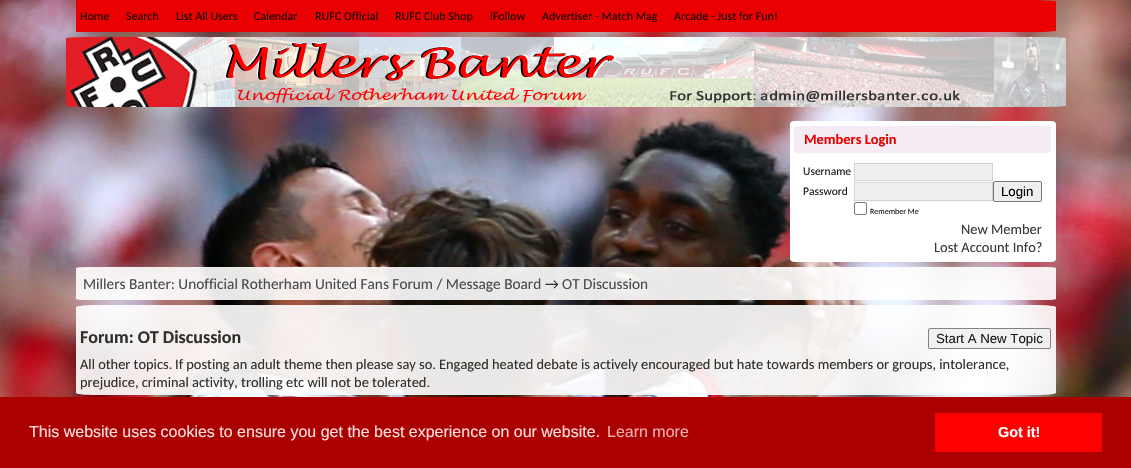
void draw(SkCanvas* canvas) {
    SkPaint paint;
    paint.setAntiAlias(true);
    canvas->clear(0xFFFFFFFF);
    canvas->drawImageRect(SkImages::DeferredFromEncodedData(SkData::MakeFromFileName("img1.png")), SkRect::MakeXYWH(0, 0, 1131, 397), SkSamplingOptions());
    paint.setColor(0xFFEA0000);
    canvas->drawPath(SkPathBuilder().moveTo(96, 0).lineTo(1036, 0).lineTo(1056, 1).lineTo(1056, 31).lineTo(1044, 32).lineTo(880, 32).lineTo(96, 32).lineTo(76, 31).lineTo(76, 1).close().detach(), paint);
    canvas->drawRect(SkRect::MakeXYWH(76, 0, 20, 32), paint);
    SkFont font1(fontMgr->matchFamilyStyle("Carlito", SkFontStyle::Normal()), 12);
    font1.setSubpixel(true);
    paint.setColor(0xFF120909);
    canvas->drawString("Home", 80, 20, font1, paint);
    canvas->drawString("Search", 126, 20, font1, paint);
    canvas->drawString("List All Users", 176, 20, font1, paint);
    canvas->drawString("Calendar", 254, 20, font1, paint);
    canvas->drawString("RUFC Official", 315, 20, font1, paint);
    canvas->drawString("RUFC Club Shop", 395, 20, font1, paint);
    canvas->drawString("iFollow", 490, 20, font1, paint);
    canvas->drawString("Advertiser - Match Mag", 542, 20, font1, paint);
    canvas->drawString("Arcade - Just for Fun!", 674, 20, font1, paint);
    canvas->drawImageRect(SkImages::DeferredFromEncodedData(SkData::MakeFromFileName("img2.png")), SkRect::MakeXYWH(66, 37, 1000, 70), SkSamplingOptions());
    paint.setColor(0xFFFFFFFF);
    canvas->drawPath(SkPathBuilder().moveTo(795, 121).lineTo(1051, 121).cubicTo(1054, 121, 1056, 122, 1056, 124).lineTo(1056, 259).cubicTo(1056, 261, 1054, 262, 1051, 262).lineTo(795, 262).cubicTo(792, 262, 790, 261, 790, 259).lineTo(790, 124).cubicTo(790, 122, 792, 121, 795, 121).close().detach(), paint);
    paint.setColor(0xFFF5EBF5);
    canvas->drawPath(SkPathBuilder().moveTo(799, 126).lineTo(1046, 126).lineTo(1051, 127).lineTo(1051, 152).lineTo(1046, 153).lineTo(799, 153).lineTo(794, 152).lineTo(794, 127).close().detach(), paint);
    SkFont font2(fontMgr->matchFamilyStyle("Carlito", SkFontStyle::Bold()), 14.4f);
    font2.setSubpixel(true);
    paint.setColor(0xFFEA0000);
    canvas->drawString("Members Login", 804, 144, font2, paint);
    SkFont font3(fontMgr->matchFamilyStyle("Carlito", SkFontStyle::Normal()), 11.5f);
    font3.setSubpixel(true);
    paint.setColor(0xFF1A1A16);
    canvas->drawString("Username", 803, 175, font3, paint);
    paint.setColor(0xFFEFEFEF);
    canvas->drawRect(SkRect::MakeXYWH(854.5f, 163.5f, 138, 17), paint);
    paint.setStyle(SkPaint::kStroke_Style);
    paint.setStrokeWidth(1);
    paint.setColor(0xFFD1D1D1);
    canvas->drawRect(SkRect::MakeXYWH(854.5f, 163.5f, 138, 17), paint);
    paint.setStyle(SkPaint::kFill_Style);
    paint.setColor(0xFF1A1A16);
    canvas->drawString("Password", 803, 195, font3, paint);
    paint.setColor(0xFFEFEFEF);
    canvas->drawRect(SkRect::MakeXYWH(854.5f, 182.5f, 138, 18), paint);
    paint.setStyle(SkPaint::kStroke_Style);
    paint.setColor(0xFFD1D1D1);
    canvas->drawRect(SkRect::MakeXYWH(854.5f, 182.5f, 138, 18), paint);
    paint.setStyle(SkPaint::kFill_Style);
    paint.setColor(0xFFEFEFEF);
    canvas->drawRoundRect(SkRect::MakeXYWH(993.5f, 181.5f, 48, 20), 1.5f, 1.5f, paint);
    paint.setStyle(SkPaint::kStroke_Style);
    paint.setColor(0xFF767676);
    canvas->drawRoundRect(SkRect::MakeXYWH(993.5f, 181.5f, 48, 20), 1.5f, 1.5f, paint);
    SkFont font4(fontMgr->matchFamilyStyle("Liberation Sans", SkFontStyle::Normal()), 13.25f);
    font4.setSubpixel(true);
    paint.setStyle(SkPaint::kFill_Style);
    paint.setColor(0xFF000000);
    canvas->drawString("Login", 1001, 196, font4, paint);
    paint.setStyle(SkPaint::kStroke_Style);
    paint.setColor(0xFF767676);
    canvas->drawRoundRect(SkRect::MakeXYWH(854.5f, 202.5f, 12, 12), 1.5f, 1.5f, paint);
    SkFont font5(fontMgr->matchFamilyStyle("Carlito", SkFontStyle::Normal()), 8);
    font5.setSubpixel(true);
    paint.setStyle(SkPaint::kFill_Style);
    paint.setColor(0xFF1A1A16);
    canvas->drawString("Remember Me", 870, 214, font5, paint);
    SkFont font6(fontMgr->matchFamilyStyle("Carlito", SkFontStyle::Normal()), 14.4f);
    font6.setSubpixel(true);
    paint.setColor(0xFF34393B);
    canvas->drawString("New Member", 961, 234, font6, paint);
    canvas->drawString("Lost Account Info?", 934, 252, font6, paint);
    paint.setColor(0xE6FFFFFF);
    canvas->drawPath(SkPathBuilder().moveTo(96, 267).lineTo(1036, 267).cubicTo(1047, 267, 1056, 267, 1056, 268).lineTo(1056, 299).cubicTo(1056, 300, 1047, 300, 1036, 300).lineTo(96, 300).cubicTo(85, 300, 76, 300, 76, 299).lineTo(76, 268).cubicTo(76, 267, 85, 267, 96, 267).close().detach(), paint);
    SkFont font7(fontMgr->matchFamilyStyle("Carlito", SkFontStyle::Normal()), 15.3f);
    font7.setSubpixel(true);
    paint.setColor(0xFF474B4D);
    canvas->drawString("Millers Banter: Unofficial Rotherham United Fans Forum / Message Board", 83, 289, font7, paint);
    paint.setColor(0xFF2F2F2B);
    canvas->drawString("→", 545, 289, font7, paint);
    paint.setColor(0xFF474B4D);
    canvas->drawString("OT Discussion", 562, 289, font7, paint);
    paint.setColor(0xE6FFFFFF);
    canvas->drawPath(SkPathBuilder().moveTo(96, 305).lineTo(1036, 305).cubicTo(1047, 305, 1056, 306, 1056, 307).lineTo(1056, 393).cubicTo(1056, 394, 1047, 395, 1036, 395).lineTo(96, 395).cubicTo(85, 395, 76, 394, 76, 393).lineTo(76, 307).cubicTo(76, 306, 85, 305, 96, 305).close().detach(), paint);
    SkFont font8(fontMgr->matchFamilyStyle("Carlito", SkFontStyle::Bold()), 18);
    font8.setSubpixel(true);
    paint.setColor(0xFF2F2F2B);
    canvas->drawString("Forum: OT Discussion", 80, 343, font8, paint);
    paint.setColor(0xE6EFEFEF);
    canvas->drawRoundRect(SkRect::MakeXYWH(928.5f, 328.5f, 122, 20), 1.5f, 1.5f, paint);
    paint.setStyle(SkPaint::kStroke_Style);
    paint.setColor(0xFF828282);
    canvas->drawRoundRect(SkRect::MakeXYWH(928.5f, 328.5f, 122, 20), 1.5f, 1.5f, paint);
    paint.setStyle(SkPaint::kFill_Style);
    paint.setColor(0xFF1A1A16);
    canvas->drawString("Start A New Topic", 936, 343, font4, paint);
    paint.setColor(0xFF2F2F2B);
    canvas->drawString("All other topics.", 80, 369, font6, paint);
    canvas->drawString("If posting an adult theme then please say so.", 175, 369, font6, paint);
    canvas->drawString("Engaged heated debate is actively encouraged but hate towards members or groups, intolerance,", 439, 369, font6, paint);
    canvas->drawString("prejudice, criminal activity, trolling etc will not be tolerated.", 80, 387, font6, paint);
    paint.setColor(0xFFAA0000);
    canvas->drawRect(SkRect::MakeXYWH(0, 397, 1131, 71), paint);
    SkFont font9(fontMgr->matchFamilyStyle("Liberation Sans", SkFontStyle::Normal()), 16);
    font9.setSubpixel(true);
    paint.setColor(0xFFFFDDDD);
    canvas->drawString("This website uses cookies to ensure you get the best experience on our website.", 29, 437, font9, paint);
    paint.setColor(0xFFEEB1B1);
    canvas->drawString("Learn more", 607, 437, font9, paint);
    paint.setColor(0xFFFF0000);
    canvas->drawRect(SkRect::MakeXYWH(935, 413, 167, 39), paint);
    SkFont font10(fontMgr->matchFamilyStyle("Liberation Sans", SkFontStyle::Bold()), 14.4f);
    font10.setSubpixel(true);
    paint.setColor(0xFFFFFFFF);
    canvas->drawString("Got it!", 998, 437, font10, paint);
}
